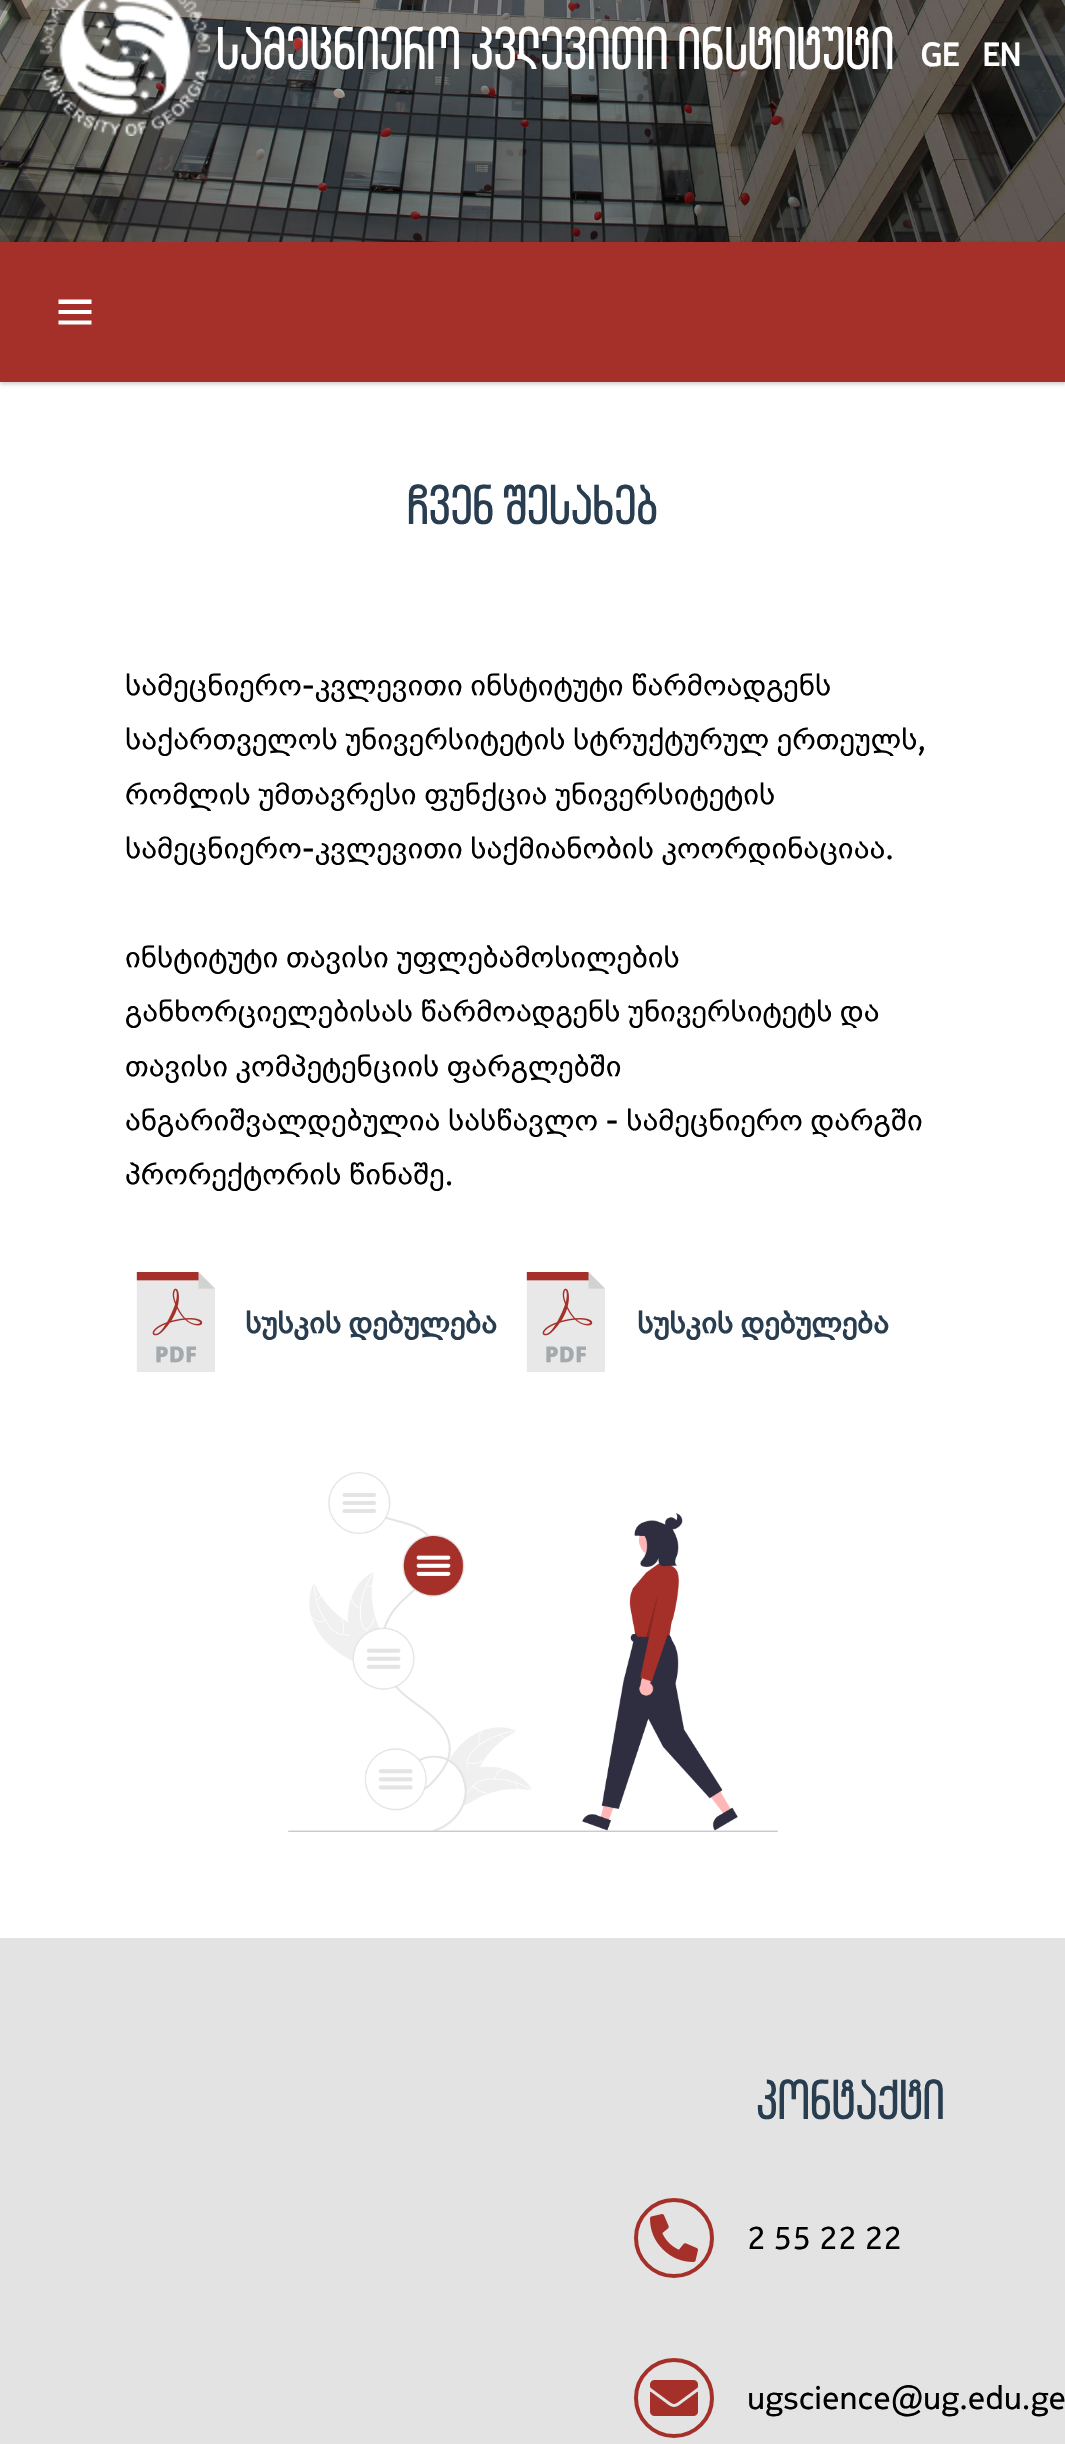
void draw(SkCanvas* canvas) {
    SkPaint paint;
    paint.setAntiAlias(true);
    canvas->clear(0xFFFFFFFF);
    canvas->drawImageRect(SkImages::DeferredFromEncodedData(SkData::MakeFromFileName("img1.png")), SkRect::MakeXYWH(0, 0, 1065, 242), SkSamplingOptions());
    canvas->drawImageRect(SkImages::DeferredFromEncodedData(SkData::MakeFromFileName("img2.png")), SkRect::MakeXYWH(40, 0, 170, 136), SkSamplingOptions());
    SkFont font1(fontMgr->matchFamilyStyle("Bebas Neue", SkFontStyle::Normal()), 60);
    font1.setSubpixel(true);
    paint.setColor(0xFFFFFFFF);
    canvas->drawString("სამეცნიერო კვლევითი ინსტიტუტი", 216, 69, font1, paint);
    SkFont font2(fontMgr->matchFamilyStyle("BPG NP", SkFontStyle::Bold()), 32);
    font2.setSubpixel(true);
    canvas->drawString("GE", 920, 66, font2, paint);
    canvas->drawString("EN", 982, 66, font2, paint);
    paint.setColor(0x33000000);
    paint.setMaskFilter(SkMaskFilter::MakeBlur(kNormal_SkBlurStyle, 2));
    canvas->drawRect(SkRect::MakeXYWH(0, 244, 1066, 140), paint);
    paint.setMaskFilter(nullptr);
    paint.setColor(0xFFA53029);
    canvas->drawRect(SkRect::MakeXYWH(0, 242, 1065, 140), paint);
    paint.setColor(0xFFFFFFFF);
    canvas->drawPath(SkPathBuilder().moveTo(58.5f, 299.5f).lineTo(91.5f, 299.5f).lineTo(91.5f, 304).lineTo(58.5f, 304).close().moveTo(58.5f, 310).lineTo(91.5f, 310).lineTo(91.5f, 314).lineTo(58.5f, 314).close().moveTo(58.5f, 320.5f).lineTo(91.5f, 320.5f).lineTo(91.5f, 324.5f).lineTo(58.5f, 324.5f).close().detach(), paint);
    SkFont font3(fontMgr->matchFamilyStyle("Bebas Neue", SkFontStyle::Normal()), 56);
    font3.setSubpixel(true);
    paint.setColor(0xFF283D50);
    canvas->drawString("ჩვენ შესახებ", 407, 524, font3, paint);
    SkFont font4(fontMgr->matchFamilyStyle("BPG NP", SkFontStyle::Normal()), 32);
    font4.setSubpixel(true);
    paint.setColor(0xFF000000);
    canvas->drawString("სამეცნიერო-კვლევითი ინსტიტუტი წარმოადგენს", 125, 696, font4, paint);
    canvas->drawString("საქართველოს უნივერსიტეტის სტრუქტურულ ერთეულს,", 125, 750, font4, paint);
    canvas->drawString("რომლის უმთავრესი ფუნქცია უნივერსიტეტის", 125, 805, font4, paint);
    canvas->drawString("სამეცნიერო-კვლევითი საქმიანობის კოორდინაციაა.", 125, 859, font4, paint);
    canvas->drawString("ინსტიტუტი თავისი უფლებამოსილების", 125, 968, font4, paint);
    canvas->drawString("განხორციელებისას წარმოადგენს უნივერსიტეტს და", 125, 1022, font4, paint);
    canvas->drawString("თავისი კომპეტენციის ფარგლებში", 125, 1077, font4, paint);
    canvas->drawString("ანგარიშვალდებულია სასწავლო - სამეცნიერო დარგში", 125, 1131, font4, paint);
    canvas->drawString("პრორექტორის წინაშე.", 125, 1185, font4, paint);
    canvas->drawImageRect(SkImages::DeferredFromEncodedData(SkData::MakeFromFileName("img3.png")), SkRect::MakeXYWH(136, 1272, 79, 100), SkSamplingOptions());
    paint.setColor(0xFF283D50);
    canvas->drawString("სუსკის დებულება", 245, 1334, font2, paint);
    canvas->drawImageRect(SkImages::DeferredFromEncodedData(SkData::MakeFromFileName("img3.png")), SkRect::MakeXYWH(526, 1272, 79, 100), SkSamplingOptions());
    canvas->drawString("სუსკის დებულება", 637, 1334, font2, paint);
    canvas->drawImageRect(SkImages::DeferredFromEncodedData(SkData::MakeFromFileName("img4.png")), SkRect::MakeXYWH(288, 1472, 490, 360), SkSamplingOptions());
    paint.setColor(0xFFE3E3E3);
    canvas->drawRect(SkRect::MakeXYWH(0, 1938, 1065, 506), paint);
    paint.setColor(0xFF283D50);
    canvas->drawString("კონტაქტი", 756, 2119, font3, paint);
    paint.setStyle(SkPaint::kStroke_Style);
    paint.setStrokeWidth(4);
    paint.setColor(0xFFA53029);
    canvas->drawCircle(674, 2238, 38, paint);
    canvas->drawImageRect(SkImages::DeferredFromEncodedData(SkData::MakeFromFileName("img5.png")), SkRect::MakeXYWH(650, 2214, 48, 48), SkSamplingOptions());
    paint.setStyle(SkPaint::kFill_Style);
    paint.setColor(0xFF000000);
    canvas->drawString("2 55 22 22", 747, 2249, font4, paint);
    paint.setStyle(SkPaint::kStroke_Style);
    paint.setColor(0xFFA53029);
    canvas->drawCircle(674, 2398, 38, paint);
    canvas->drawImageRect(SkImages::DeferredFromEncodedData(SkData::MakeFromFileName("img6.png")), SkRect::MakeXYWH(650, 2380, 48, 36), SkSamplingOptions());
    paint.setStyle(SkPaint::kFill_Style);
    paint.setColor(0xFF000000);
    canvas->drawString("ugscience@ug.edu.ge", 747, 2409, font4, paint);
}
